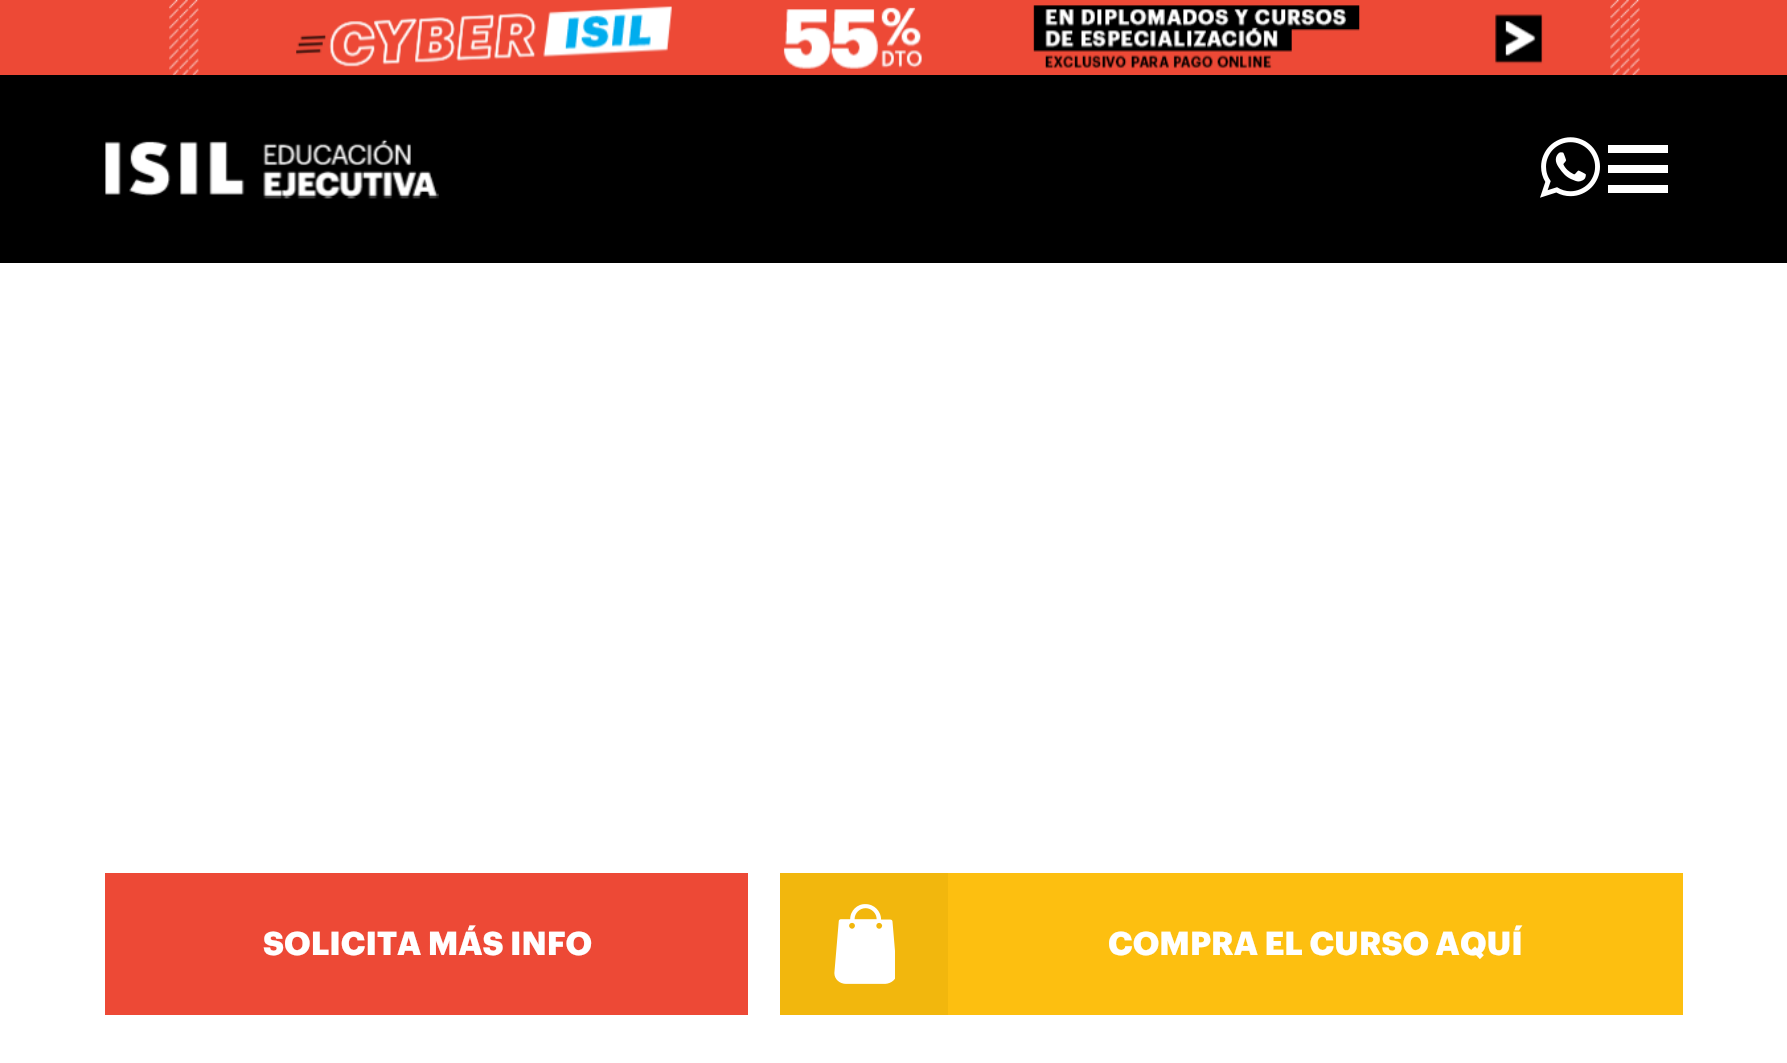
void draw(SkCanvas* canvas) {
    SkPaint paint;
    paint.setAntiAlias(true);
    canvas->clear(0xFFFFFFFF);
    paint.setColor(0xFFED4936);
    canvas->drawRect(SkRect::MakeXYWH(0, 0, 1787, 75), paint);
    canvas->drawImageRect(SkImages::DeferredFromEncodedData(SkData::MakeFromFileName("img1.png")), SkRect::MakeXYWH(169, 0, 1471, 75), SkSamplingOptions());
    paint.setColor(0xFF000000);
    canvas->drawRect(SkRect::MakeXYWH(0, 75, 1787, 188), paint);
    canvas->drawImageRect(SkImages::DeferredFromEncodedData(SkData::MakeFromFileName("img2.png")), SkRect::MakeXYWH(105, 139, 334, 60), SkSamplingOptions());
    canvas->drawImageRect(SkImages::DeferredFromEncodedData(SkData::MakeFromFileName("img3.png")), SkRect::MakeXYWH(1540, 137, 60, 61), SkSamplingOptions());
    paint.setColor(0xFFFFFFFF);
    canvas->drawRect(SkRect::MakeXYWH(1608, 145, 60, 8), paint);
    canvas->drawRect(SkRect::MakeXYWH(1608, 165, 60, 8), paint);
    canvas->drawRect(SkRect::MakeXYWH(1608, 185, 60, 8), paint);
    paint.setColor(0xFFED4936);
    canvas->drawRect(SkRect::MakeXYWH(105, 873, 643, 142), paint);
    SkFont font1(fontMgr->matchFamilyStyle("Graphik", SkFontStyle::Bold()), 32.5f);
    font1.setSubpixel(true);
    paint.setColor(0xFFFFFFFF);
    canvas->drawString("SOLICITA MÁS INFO", 263, 955, font1, paint);
    paint.setColor(0xFFFDBF10);
    canvas->drawRect(SkRect::MakeXYWH(948, 873, 735, 142), paint);
    paint.setColor(0xFFF2B70D);
    canvas->drawRect(SkRect::MakeXYWH(780, 873, 168, 142), paint);
    canvas->drawImageRect(SkImages::DeferredFromEncodedData(SkData::MakeFromFileName("img4.png")), SkRect::MakeXYWH(834, 904, 61, 80), SkSamplingOptions());
    paint.setColor(0xFFFFFFFF);
    canvas->drawString("COMPRA EL CURSO AQUÍ", 1108, 955, font1, paint);
}
